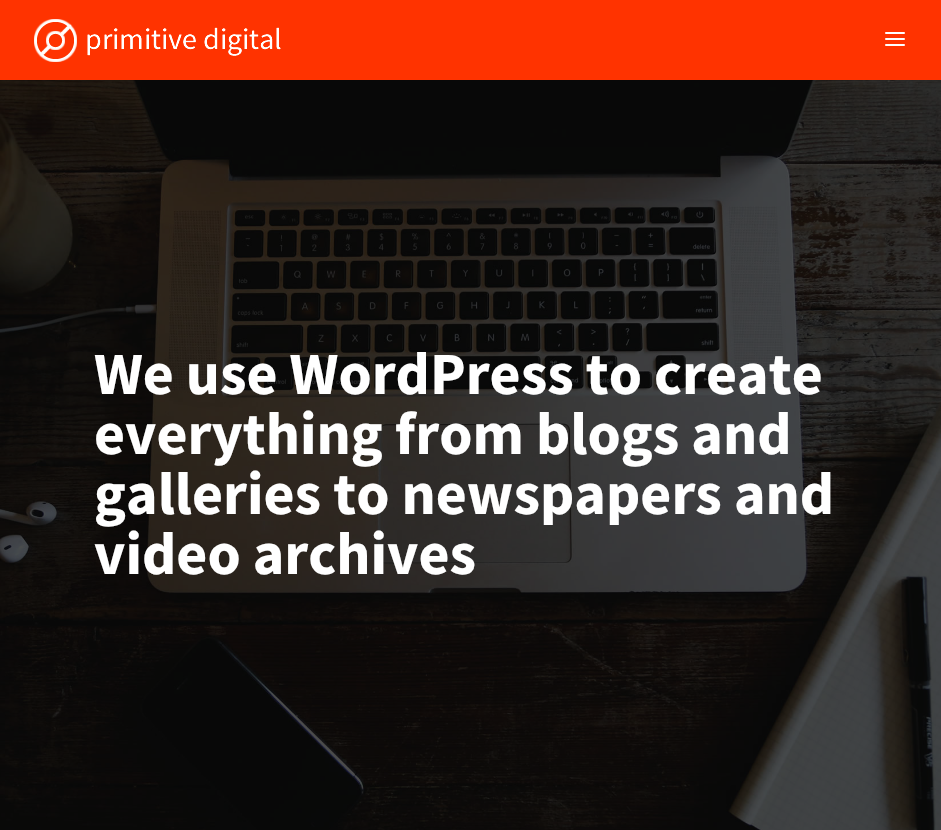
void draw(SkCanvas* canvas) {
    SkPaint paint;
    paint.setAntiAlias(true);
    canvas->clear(0xFFFFFFFF);
    canvas->drawImageRect(SkImages::DeferredFromEncodedData(SkData::MakeFromFileName("img3.png")), SkRect::MakeXYWH(0, 80, 941, 750), SkSamplingOptions());
    paint.setColor(0x1A000000);
    canvas->drawRect(SkRect::MakeXYWH(0, 80, 941, 1), paint);
    paint.setColor(0xFFFF3300);
    canvas->drawRect(SkRect::MakeXYWH(0, 0, 941, 80), paint);
    canvas->drawImageRect(SkImages::DeferredFromEncodedData(SkData::MakeFromFileName("img1.png")), SkRect::MakeXYWH(34, 19, 247, 43), SkSamplingOptions());
    canvas->drawImageRect(SkImages::DeferredFromEncodedData(SkData::MakeFromFileName("img2.png")), SkRect::MakeXYWH(885, 32, 20, 14), SkSamplingOptions());
    SkFont font1(fontMgr->matchFamilyStyle("Source Sans Pro", SkFontStyle::Bold()), 60);
    font1.setSubpixel(true);
    paint.setColor(0xFFFFFFFF);
    canvas->drawString("We use WordPress to create", 94, 394, font1, paint);
    canvas->drawString("everything from blogs and", 94, 454, font1, paint);
    canvas->drawString("galleries to newspapers and", 94, 514, font1, paint);
    canvas->drawString("video archives", 94, 574, font1, paint);
}
